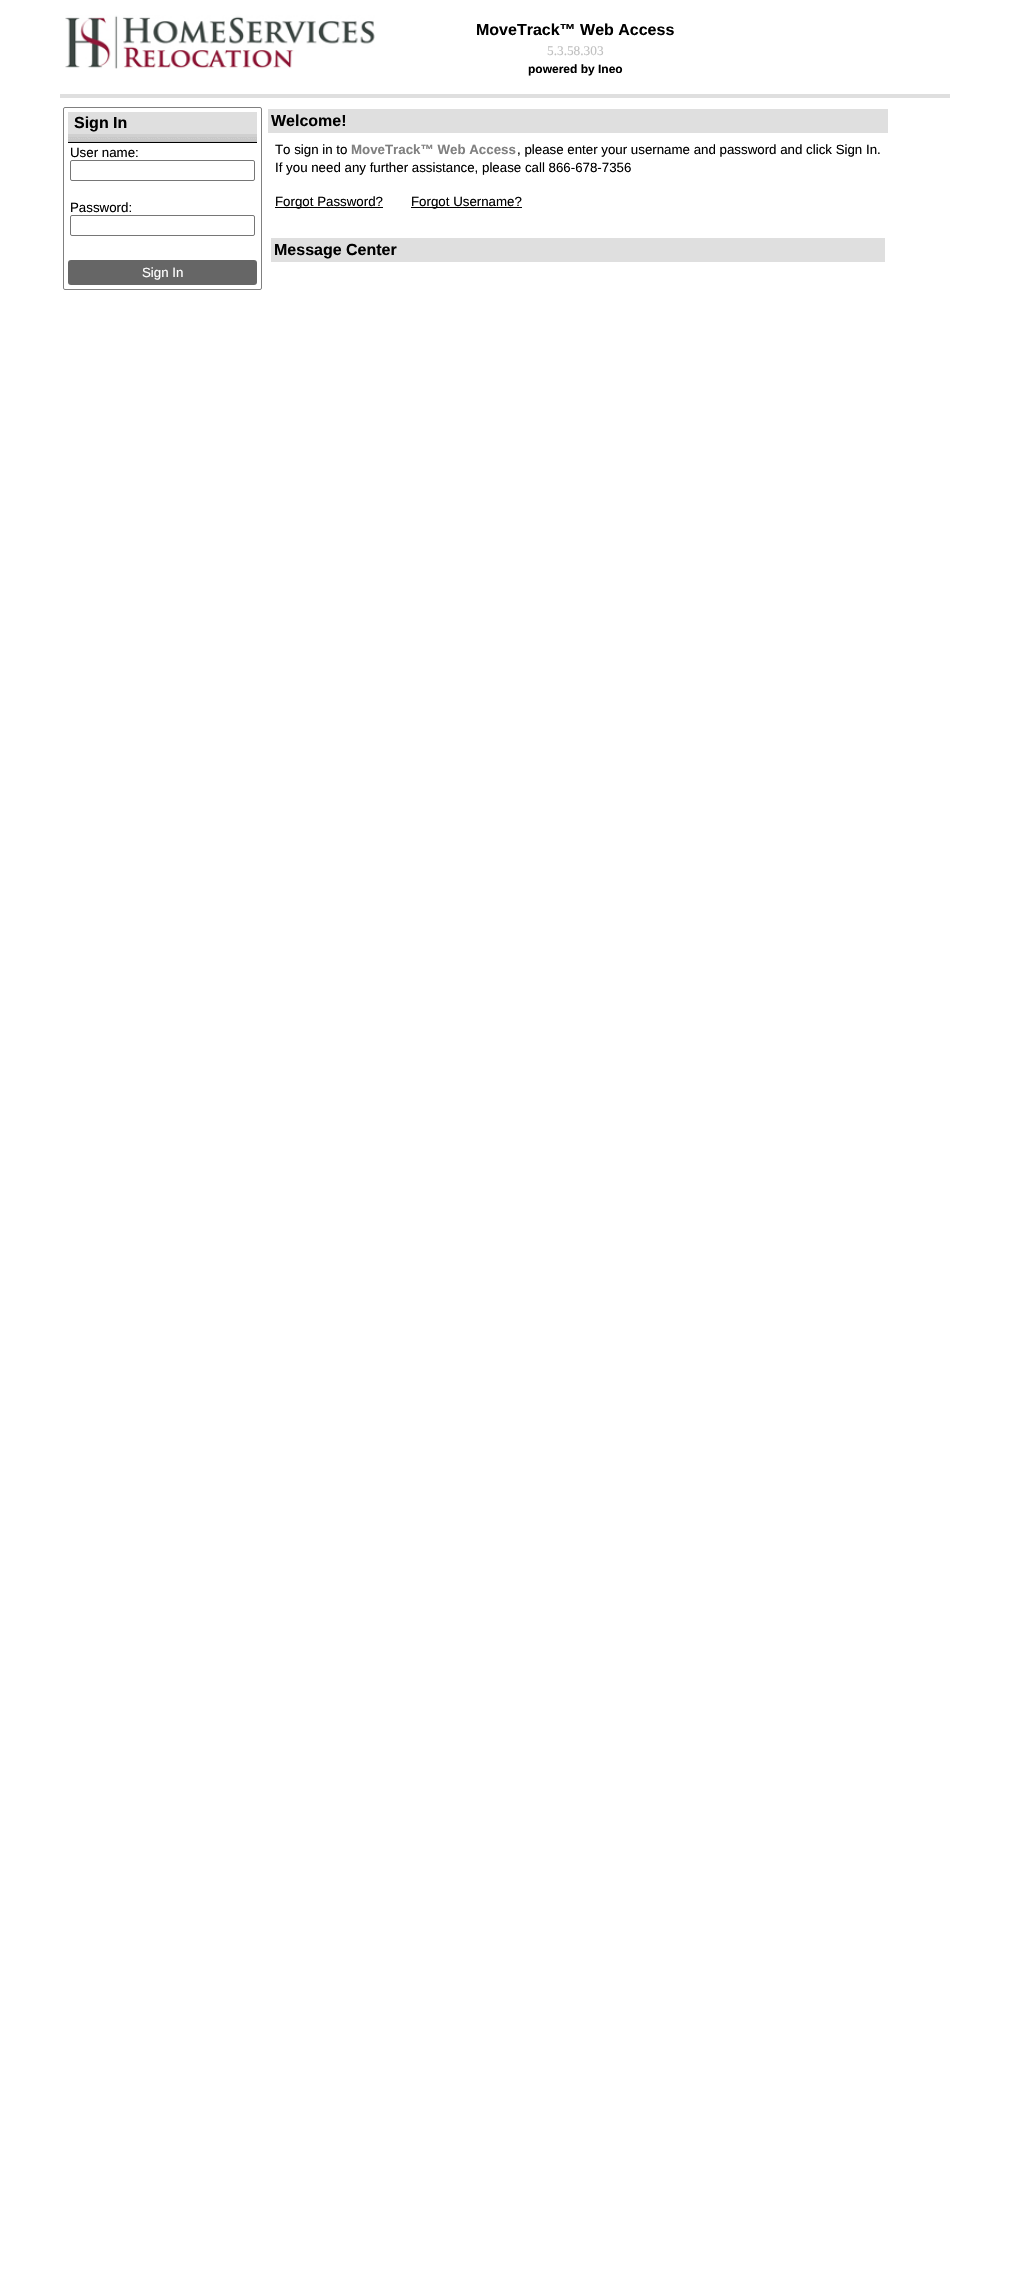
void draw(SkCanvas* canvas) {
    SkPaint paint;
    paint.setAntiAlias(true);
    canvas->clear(0xFFFFFFFF);
    canvas->drawImageRect(SkImages::DeferredFromEncodedData(SkData::MakeFromFileName("img1.png")), SkRect::MakeXYWH(65, 15, 310, 54), SkSamplingOptions());
    SkFont font1(fontMgr->matchFamilyStyle("Liberation Sans", SkFontStyle::Bold()), 16);
    font1.setSubpixel(true);
    paint.setColor(0xFF000000);
    canvas->drawString("MoveTrack™ Web Access", 476, 35, font1, paint);
    SkFont font2(fontMgr->matchFamilyStyle("Liberation Serif", SkFontStyle::Normal()), 13.3f);
    font2.setSubpixel(true);
    paint.setColor(0xFFC0C0C0);
    canvas->drawString("5.3.58.303", 547, 55, font2, paint);
    SkFont font3(fontMgr->matchFamilyStyle("Liberation Sans", SkFontStyle::Bold()), 12);
    font3.setSubpixel(true);
    paint.setColor(0xFF000000);
    canvas->drawString("powered by Ineo", 528, 73, font3, paint);
    paint.setColor(0xFFDFDFDF);
    canvas->drawRect(SkRect::MakeXYWH(60, 94, 890, 4), paint);
    paint.setStyle(SkPaint::kStroke_Style);
    paint.setStrokeWidth(1);
    paint.setColor(0xFF808080);
    canvas->drawRoundRect(SkRect::MakeXYWH(63.5f, 107.5f, 198, 182), 1.5f, 1.5f, paint);
    paint.setStyle(SkPaint::kFill_Style);
    paint.setColor(0xFFC0C0C0);
    canvas->drawRect(SkRect::MakeXYWH(68, 141, 189, 1), paint);
    canvas->drawImageRect(SkImages::DeferredFromEncodedData(SkData::MakeFromFileName("img2.png")), SkRect::MakeXYWH(68, 134, 189, 7), SkSamplingOptions());
    paint.setColor(0xFFDFDFDF);
    canvas->drawRect(SkRect::MakeXYWH(68, 112, 189, 22), paint);
    paint.setColor(0xFF000000);
    canvas->drawString("Sign In", 74, 128, font1, paint);
    canvas->drawRect(SkRect::MakeXYWH(68, 142, 189, 1), paint);
    SkFont font4(fontMgr->matchFamilyStyle("Liberation Sans", SkFontStyle::Normal()), 13.3f);
    font4.setSubpixel(true);
    canvas->drawString("User name:", 70, 157, font4, paint);
    paint.setStyle(SkPaint::kStroke_Style);
    paint.setColor(0xFF767676);
    canvas->drawRoundRect(SkRect::MakeXYWH(70.5f, 160.5f, 184, 20), 1.5f, 1.5f, paint);
    paint.setStyle(SkPaint::kFill_Style);
    paint.setColor(0xFF000000);
    canvas->drawString("Password:", 70, 212, font4, paint);
    paint.setStyle(SkPaint::kStroke_Style);
    paint.setColor(0xFF767676);
    canvas->drawRoundRect(SkRect::MakeXYWH(70.5f, 215.5f, 184, 20), 1.5f, 1.5f, paint);
    paint.setStyle(SkPaint::kFill_Style);
    paint.setColor(0xFF666666);
    canvas->drawRoundRect(SkRect::MakeXYWH(68, 260, 189, 25), 3, 3, paint);
    paint.setColor(0xFFFFFFFF);
    canvas->drawString("Sign In", 142, 277, font4, paint);
    paint.setColor(0xFFDFDFDF);
    canvas->drawRect(SkRect::MakeXYWH(268, 109, 620, 24), paint);
    paint.setColor(0xFF000000);
    canvas->drawString("Welcome!", 271, 126, font1, paint);
    canvas->drawString("To sign in to", 275, 154, font4, paint);
    SkFont font5(fontMgr->matchFamilyStyle("Liberation Sans", SkFontStyle::Bold()), 13.3f);
    font5.setSubpixel(true);
    paint.setColor(0xFF808080);
    canvas->drawString("MoveTrack™ Web Access", 351, 154, font5, paint);
    paint.setColor(0xFF000000);
    canvas->drawString(", please enter your username and password and click Sign In.", 517, 154, font4, paint);
    canvas->drawString("If you need any further assistance, please call 866-678-7356", 275, 172, font4, paint);
    canvas->drawRect(SkRect::MakeXYWH(275, 207, 108, 1), paint);
    canvas->drawString("Forgot Password?", 275, 206, font4, paint);
    canvas->drawRect(SkRect::MakeXYWH(411, 207, 111, 1), paint);
    canvas->drawString("Forgot Username?", 411, 206, font4, paint);
    paint.setColor(0xFFDFDFDF);
    canvas->drawRect(SkRect::MakeXYWH(271, 238, 614, 24), paint);
    paint.setColor(0xFF000000);
    canvas->drawString("Message Center", 274, 255, font1, paint);
}
